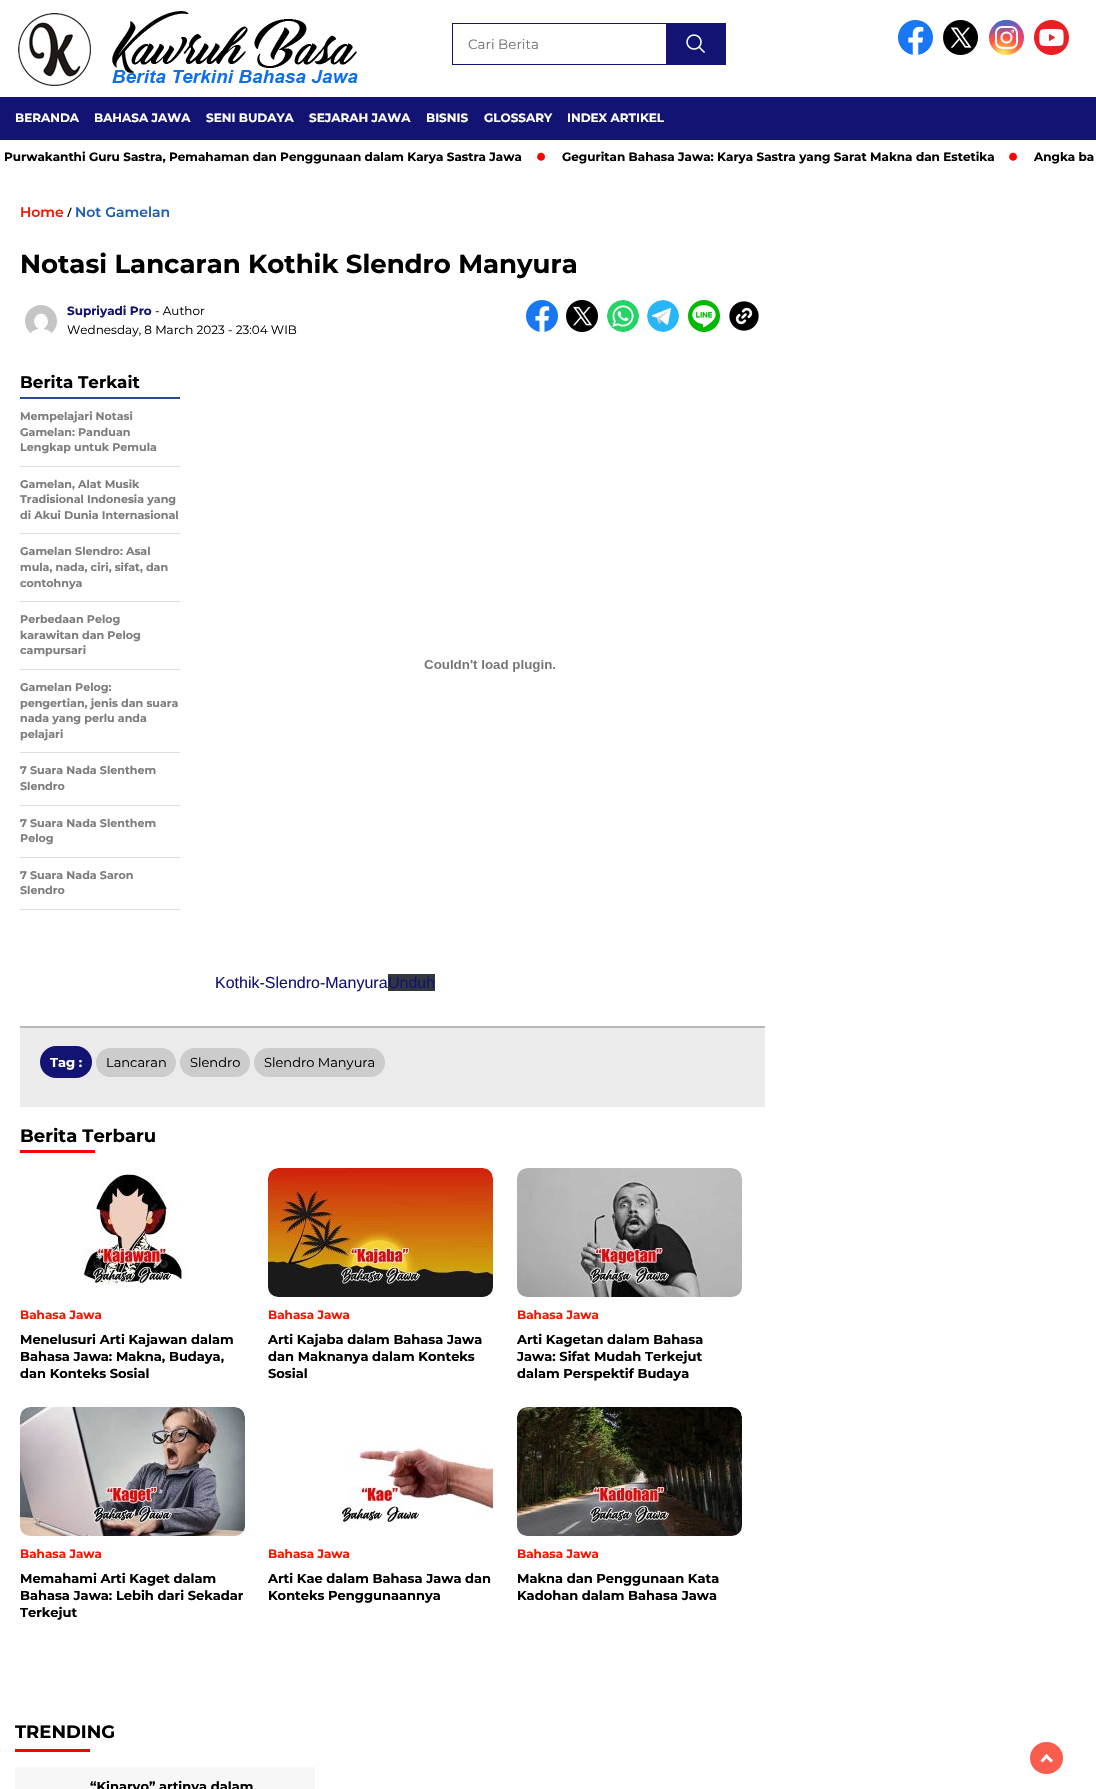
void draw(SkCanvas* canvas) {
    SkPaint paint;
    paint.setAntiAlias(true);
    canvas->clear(0xFFFFFFFF);
    canvas->drawImageRect(SkImages::DeferredFromEncodedData(SkData::MakeFromFileName("img1.png")), SkRect::MakeXYWH(18, 11, 340, 75), SkSamplingOptions());
    paint.setStyle(SkPaint::kStroke_Style);
    paint.setStrokeWidth(1);
    paint.setColor(0xFF131373);
    canvas->drawRect(SkRect::MakeXYWH(452.5f, 23.5f, 215, 41), paint);
    SkFont font1(fontMgr->matchFamilyStyle("Montserrat", SkFontStyle::Normal()), 13.5f);
    font1.setSubpixel(true);
    paint.setStyle(SkPaint::kFill_Style);
    paint.setColor(0xFF757575);
    canvas->drawString("Cari Berita", 468, 49, font1, paint);
    paint.setColor(0xFF131373);
    canvas->drawRect(SkRect::MakeXYWH(666, 23, 60, 42), paint);
    canvas->drawImageRect(SkImages::DeferredFromEncodedData(SkData::MakeFromFileName("img2.png")), SkRect::MakeXYWH(686, 34, 19, 19), SkSamplingOptions());
    canvas->drawImageRect(SkImages::DeferredFromEncodedData(SkData::MakeFromFileName("img3.png")), SkRect::MakeXYWH(898, 20, 35, 35), SkSamplingOptions());
    canvas->drawImageRect(SkImages::DeferredFromEncodedData(SkData::MakeFromFileName("img4.png")), SkRect::MakeXYWH(943, 20, 35, 35), SkSamplingOptions());
    {
        const SkColor colors[] = {0xFFFFDD55, 0xFFFF543E, 0xFFC837AB};
        const float stops[] = {0.1f, 0.5f, 1};
        paint.setShader(SkGradientShader::MakeRadial({1003, 55}, 35, colors, stops, 3, SkTileMode::kClamp));
        paint.setAlpha(255);
    }
    canvas->drawCircle(1006.5f, 37.5f, 17.5f, paint);
    {
        const SkColor colors[] = {0xFF3771C8, 0x003771C8};
        const float stops[] = {0.1f, 0.5f};
        const SkPoint ends[] = {{989, 20}, {996, 55}};
        paint.setShader(SkGradientShader::MakeLinear(ends, colors, stops, 2, SkTileMode::kClamp));
        paint.setAlpha(255);
    }
    canvas->drawCircle(1006.5f, 37.5f, 17.5f, paint);
    paint.setStyle(SkPaint::kStroke_Style);
    paint.setStrokeWidth(2);
    paint.setShader(nullptr);
    paint.setColor(0xFFFFFFFF);
    canvas->drawRoundRect(SkRect::MakeXYWH(996, 27, 21, 21), 6, 6, paint);
    paint.setStrokeWidth(2.1f);
    canvas->drawCircle(1006.5f, 37.5f, 5, paint);
    canvas->drawCircle(1012.7f, 31.3f, 0.4f, paint);
    canvas->drawImageRect(SkImages::DeferredFromEncodedData(SkData::MakeFromFileName("img5.png")), SkRect::MakeXYWH(1034, 20, 35, 35), SkSamplingOptions());
    paint.setStyle(SkPaint::kFill_Style);
    paint.setColor(0xFF131373);
    canvas->drawRect(SkRect::MakeXYWH(0, 97, 1096, 43), paint);
    SkFont font2(fontMgr->matchFamilyStyle("Montserrat", SkFontStyle::Bold()), 12);
    font2.setSubpixel(true);
    paint.setColor(0xFFFFFFFF);
    canvas->drawString("BERANDA", 15, 122, font2, paint);
    canvas->drawString("BAHASA JAWA", 94, 122, font2, paint);
    canvas->drawString("SENI BUDAYA", 206, 122, font2, paint);
    canvas->drawString("SEJARAH JAWA", 309, 122, font2, paint);
    canvas->drawString("BISNIS", 426, 122, font2, paint);
    canvas->drawString("GLOSSARY", 484, 122, font2, paint);
    canvas->drawString("INDEX ARTIKEL", 567, 122, font2, paint);
    paint.setColor(0xFF000000);
    canvas->drawString("Purwakanthi Guru Sastra, Pemahaman dan Penggunaan dalam Karya Sastra Jawa", 4, 161, font2, paint);
    SkFont font3(fontMgr->matchFamilyStyle("Montserrat", SkFontStyle::Bold()), 40);
    font3.setSubpixel(true);
    paint.setColor(0xFFFF0000);
    canvas->drawString("·", 535, 168, font3, paint);
    paint.setColor(0xFF000000);
    canvas->drawString("Geguritan Bahasa Jawa: Karya Sastra yang Sarat Makna dan Estetika", 562, 161, font2, paint);
    paint.setColor(0xFFFF0000);
    canvas->drawString("·", 1007, 168, font3, paint);
    paint.setColor(0xFF000000);
    canvas->drawString("Angka ba", 1034, 161, font2, paint);
    SkFont font4(fontMgr->matchFamilyStyle("Montserrat", SkFontStyle(600, SkFontStyle::kNormal_Width, SkFontStyle::kUpright_Slant)), 14);
    font4.setSubpixel(true);
    paint.setColor(0xFFF51700);
    canvas->drawString("Home", 20, 217, font4, paint);
    SkFont font5(fontMgr->matchFamilyStyle("Noto Sans", SkFontStyle::Normal()), 13);
    font5.setSubpixel(true);
    paint.setColor(0xFF000000);
    canvas->drawString("/", 67, 217, font5, paint);
    paint.setColor(0xFF1B5DAF);
    canvas->drawString("Not Gamelan", 75, 217, font4, paint);
    SkFont font6(fontMgr->matchFamilyStyle("Montserrat", SkFontStyle::Bold()), 26);
    font6.setSubpixel(true);
    paint.setColor(0xFF000000);
    canvas->drawString("Notasi Lancaran Kothik Slendro Manyura", 20, 273, font6, paint);
    canvas->drawImageRect(SkImages::DeferredFromEncodedData(SkData::MakeFromFileName("img6.png")), SkRect::MakeXYWH(25, 305, 32, 30), SkSamplingOptions());
    paint.setColor(0xFF131373);
    canvas->drawString("Supriyadi Pro", 67, 315, font2, paint);
    SkFont font7(fontMgr->matchFamilyStyle("Montserrat", SkFontStyle::Normal()), 12);
    font7.setSubpixel(true);
    paint.setColor(0xFF000000);
    canvas->drawString("- Author", 155, 315, font7, paint);
    canvas->drawString("Wednesday, 8 March 2023 - 23:04 WIB", 67, 334, font7, paint);
    canvas->drawImageRect(SkImages::DeferredFromEncodedData(SkData::MakeFromFileName("img7.png")), SkRect::MakeXYWH(526, 300, 32, 32), SkSamplingOptions());
    canvas->drawImageRect(SkImages::DeferredFromEncodedData(SkData::MakeFromFileName("img8.png")), SkRect::MakeXYWH(566, 300, 32, 32), SkSamplingOptions());
    canvas->drawImageRect(SkImages::DeferredFromEncodedData(SkData::MakeFromFileName("img9.png")), SkRect::MakeXYWH(607, 300, 32, 32), SkSamplingOptions());
    canvas->drawImageRect(SkImages::DeferredFromEncodedData(SkData::MakeFromFileName("img10.png")), SkRect::MakeXYWH(647, 300, 32, 32), SkSamplingOptions());
    canvas->drawImageRect(SkImages::DeferredFromEncodedData(SkData::MakeFromFileName("img11.png")), SkRect::MakeXYWH(688, 300, 32, 32), SkSamplingOptions());
    canvas->drawImageRect(SkImages::DeferredFromEncodedData(SkData::MakeFromFileName("img12.png")), SkRect::MakeXYWH(729, 301, 30, 30), SkSamplingOptions());
    paint.setColor(0xFF284A9A);
    canvas->drawRect(SkRect::MakeXYWH(20, 397, 160, 2), paint);
    SkFont font8(fontMgr->matchFamilyStyle("Montserrat", SkFontStyle::Bold()), 16.75f);
    font8.setSubpixel(true);
    paint.setColor(0xFF000000);
    canvas->drawString("Berita Terkait", 20, 388, font8, paint);
    paint.setColor(0xFFDDDDDD);
    canvas->drawRect(SkRect::MakeXYWH(20, 466, 160, 1), paint);
    SkFont font9(fontMgr->matchFamilyStyle("Montserrat", SkFontStyle::Bold()), 11.1f);
    font9.setSubpixel(true);
    paint.setColor(0xFF7D7D7D);
    canvas->drawString("Mempelajari Notasi", 20, 420, font9, paint);
    canvas->drawString("Gamelan: Panduan", 20, 436, font9, paint);
    canvas->drawString("Lengkap untuk Pemula", 20, 451, font9, paint);
    paint.setColor(0xFFDDDDDD);
    canvas->drawRect(SkRect::MakeXYWH(20, 533, 160, 1), paint);
    paint.setColor(0xFF7D7D7D);
    canvas->drawString("Gamelan, Alat Musik", 20, 488, font9, paint);
    canvas->drawString("Tradisional Indonesia yang", 20, 503, font9, paint);
    canvas->drawString("di Akui Dunia Internasional", 20, 519, font9, paint);
    paint.setColor(0xFFDDDDDD);
    canvas->drawRect(SkRect::MakeXYWH(20, 601, 160, 1), paint);
    paint.setColor(0xFF7D7D7D);
    canvas->drawString("Gamelan Slendro: Asal", 20, 555, font9, paint);
    canvas->drawString("mula, nada, ciri, sifat, dan", 20, 571, font9, paint);
    canvas->drawString("contohnya", 20, 587, font9, paint);
    paint.setColor(0xFFDDDDDD);
    canvas->drawRect(SkRect::MakeXYWH(20, 669, 160, 1), paint);
    paint.setColor(0xFF7D7D7D);
    canvas->drawString("Perbedaan Pelog", 20, 623, font9, paint);
    canvas->drawString("karawitan dan Pelog", 20, 639, font9, paint);
    canvas->drawString("campursari", 20, 654, font9, paint);
    paint.setColor(0xFFDDDDDD);
    canvas->drawRect(SkRect::MakeXYWH(20, 752, 160, 1), paint);
    paint.setColor(0xFF7D7D7D);
    canvas->drawString("Gamelan Pelog:", 20, 691, font9, paint);
    canvas->drawString("pengertian, jenis dan suara", 20, 707, font9, paint);
    canvas->drawString("nada yang perlu anda", 20, 722, font9, paint);
    canvas->drawString("pelajari", 20, 738, font9, paint);
    paint.setColor(0xFFDDDDDD);
    canvas->drawRect(SkRect::MakeXYWH(20, 805, 160, 1), paint);
    paint.setColor(0xFF7D7D7D);
    canvas->drawString("7 Suara Nada Slenthem", 20, 774, font9, paint);
    canvas->drawString("Slendro", 20, 790, font9, paint);
    paint.setColor(0xFFDDDDDD);
    canvas->drawRect(SkRect::MakeXYWH(20, 857, 160, 1), paint);
    paint.setColor(0xFF7D7D7D);
    canvas->drawString("7 Suara Nada Slenthem", 20, 827, font9, paint);
    canvas->drawString("Pelog", 20, 842, font9, paint);
    paint.setColor(0xFFDDDDDD);
    canvas->drawRect(SkRect::MakeXYWH(20, 909, 160, 1), paint);
    paint.setColor(0xFF7D7D7D);
    canvas->drawString("7 Suara Nada Saron", 20, 879, font9, paint);
    canvas->drawString("Slendro", 20, 894, font9, paint);
    canvas->drawImageRect(SkImages::DeferredFromEncodedData(SkData::MakeFromFileName("img13.png")), SkRect::MakeXYWH(424, 660, 131, 12), SkSamplingOptions());
    SkFont font10(fontMgr->matchFamilyStyle("Liberation Sans", SkFontStyle::Normal()), 16);
    font10.setSubpixel(true);
    paint.setColor(0xFF131373);
    canvas->drawString("Kothik-Slendro-Manyura", 215, 988, font10, paint);
    paint.setColor(0xFF32373C);
    canvas->drawRect(SkRect::MakeXYWH(388, 974, 47, 17), paint);
    paint.setColor(0xFF131373);
    canvas->drawString("Unduh", 388, 988, font10, paint);
    paint.setColor(0xFFEBEBEB);
    canvas->drawRect(SkRect::MakeXYWH(20, 1028, 745, 79), paint);
    paint.setColor(0xFFB9B8B8);
    canvas->drawRect(SkRect::MakeXYWH(20, 1026, 745, 2), paint);
    paint.setColor(0xFF131373);
    canvas->drawRoundRect(SkRect::MakeXYWH(40, 1046, 52, 32), 16, 16, paint);
    SkFont font11(fontMgr->matchFamilyStyle("Montserrat", SkFontStyle::Bold()), 13);
    font11.setSubpixel(true);
    paint.setColor(0xFFFFFFFF);
    canvas->drawString("Tag :", 50, 1067, font11, paint);
    paint.setColor(0xFFCCCCCC);
    canvas->drawRoundRect(SkRect::MakeXYWH(96, 1048, 80, 29), 14.5f, 14.5f, paint);
    SkFont font12(fontMgr->matchFamilyStyle("Montserrat", SkFontStyle::Normal()), 13);
    font12.setSubpixel(true);
    paint.setColor(0xFF000000);
    canvas->drawString("Lancaran", 106, 1067, font12, paint);
    paint.setColor(0xFFCCCCCC);
    canvas->drawRoundRect(SkRect::MakeXYWH(180, 1048, 70, 29), 14.5f, 14.5f, paint);
    paint.setColor(0xFF000000);
    canvas->drawString("Slendro", 190, 1067, font12, paint);
    paint.setColor(0xFFCCCCCC);
    canvas->drawRoundRect(SkRect::MakeXYWH(254, 1048, 131, 29), 14.5f, 14.5f, paint);
    paint.setColor(0xFF000000);
    canvas->drawString("Slendro Manyura", 264, 1067, font12, paint);
    SkFont font13(fontMgr->matchFamilyStyle("Montserrat", SkFontStyle::Bold()), 18);
    font13.setSubpixel(true);
    canvas->drawString("Berita Terbaru", 20, 1142, font13, paint);
    paint.setColor(0xFFFF0000);
    canvas->drawRect(SkRect::MakeXYWH(20, 1150, 75, 3), paint);
    canvas->drawImageRect(SkImages::DeferredFromEncodedData(SkData::MakeFromFileName("img14.png")), SkRect::MakeXYWH(84, 1168, 104, 120), SkSamplingOptions());
    paint.setColor(0xFFF51700);
    canvas->drawString("Bahasa Jawa", 20, 1319, font2, paint);
    paint.setColor(0xFF000000);
    canvas->drawString("Menelusuri Arti Kajawan dalam", 20, 1344, font11, paint);
    canvas->drawString("Bahasa Jawa: Makna, Budaya,", 20, 1361, font11, paint);
    canvas->drawString("dan Konteks Sosial", 20, 1378, font11, paint);
    canvas->drawImageRect(SkImages::DeferredFromEncodedData(SkData::MakeFromFileName("img15.png")), SkRect::MakeXYWH(268, 1168, 225, 129), SkSamplingOptions());
    paint.setColor(0xFFF51700);
    canvas->drawString("Bahasa Jawa", 268, 1319, font2, paint);
    paint.setColor(0xFF000000);
    canvas->drawString("Arti Kajaba dalam Bahasa Jawa", 268, 1344, font11, paint);
    canvas->drawString("dan Maknanya dalam Konteks", 268, 1361, font11, paint);
    canvas->drawString("Sosial", 268, 1378, font11, paint);
    canvas->drawImageRect(SkImages::DeferredFromEncodedData(SkData::MakeFromFileName("img16.png")), SkRect::MakeXYWH(517, 1168, 225, 129), SkSamplingOptions());
    paint.setColor(0xFFF51700);
    canvas->drawString("Bahasa Jawa", 517, 1319, font2, paint);
    paint.setColor(0xFF000000);
    canvas->drawString("Arti Kagetan dalam Bahasa", 517, 1344, font11, paint);
    canvas->drawString("Jawa: Sifat Mudah Terkejut", 517, 1361, font11, paint);
    canvas->drawString("dalam Perspektif Budaya", 517, 1378, font11, paint);
    canvas->drawImageRect(SkImages::DeferredFromEncodedData(SkData::MakeFromFileName("img17.png")), SkRect::MakeXYWH(20, 1407, 225, 129), SkSamplingOptions());
    paint.setColor(0xFFF51700);
    canvas->drawString("Bahasa Jawa", 20, 1558, font2, paint);
    paint.setColor(0xFF000000);
    canvas->drawString("Memahami Arti Kaget dalam", 20, 1583, font11, paint);
    canvas->drawString("Bahasa Jawa: Lebih dari Sekadar", 20, 1600, font11, paint);
    canvas->drawString("Terkejut", 20, 1617, font11, paint);
    canvas->drawImageRect(SkImages::DeferredFromEncodedData(SkData::MakeFromFileName("img18.png")), SkRect::MakeXYWH(340, 1444, 153, 83), SkSamplingOptions());
    paint.setColor(0xFFF51700);
    canvas->drawString("Bahasa Jawa", 268, 1558, font2, paint);
    paint.setColor(0xFF000000);
    canvas->drawString("Arti Kae dalam Bahasa Jawa dan", 268, 1583, font11, paint);
    canvas->drawString("Konteks Penggunaannya", 268, 1600, font11, paint);
    canvas->drawImageRect(SkImages::DeferredFromEncodedData(SkData::MakeFromFileName("img19.png")), SkRect::MakeXYWH(517, 1407, 225, 129), SkSamplingOptions());
    paint.setColor(0xFFF51700);
    canvas->drawString("Bahasa Jawa", 517, 1558, font2, paint);
    paint.setColor(0xFF000000);
    canvas->drawString("Makna dan Penggunaan Kata", 517, 1583, font11, paint);
    canvas->drawString("Kadohan dalam Bahasa Jawa", 517, 1600, font11, paint);
    canvas->drawString("TRENDING", 15, 1738, font13, paint);
    paint.setColor(0xFFFF0000);
    canvas->drawRect(SkRect::MakeXYWH(15, 1749, 75, 3), paint);
    paint.setColor(0xFFF7F7F7);
    canvas->drawRect(SkRect::MakeXYWH(15, 1767, 300, 22), paint);
    paint.setColor(0xFF000000);
    canvas->drawString("“Kinaryo” artinya dalam", 90, 1791, font11, paint);
    paint.setColor(0xFFF85D4D);
    canvas->drawRoundRect(SkRect::MakeXYWH(1030, 1742, 33, 32), 16, 16, paint);
    paint.setColor(0xFFFFFFFF);
    canvas->drawPath(SkPathBuilder().moveTo(1042.5f, 1762.5f).lineTo(1040.5f, 1760.5f).lineTo(1046.5f, 1754).lineTo(1048.5f, 1756.5f).close().detach(), paint);
    canvas->drawPath(SkPathBuilder().moveTo(1051, 1762.5f).lineTo(1044.5f, 1756.5f).lineTo(1046.5f, 1754).lineTo(1053, 1760.5f).close().detach(), paint);
}
